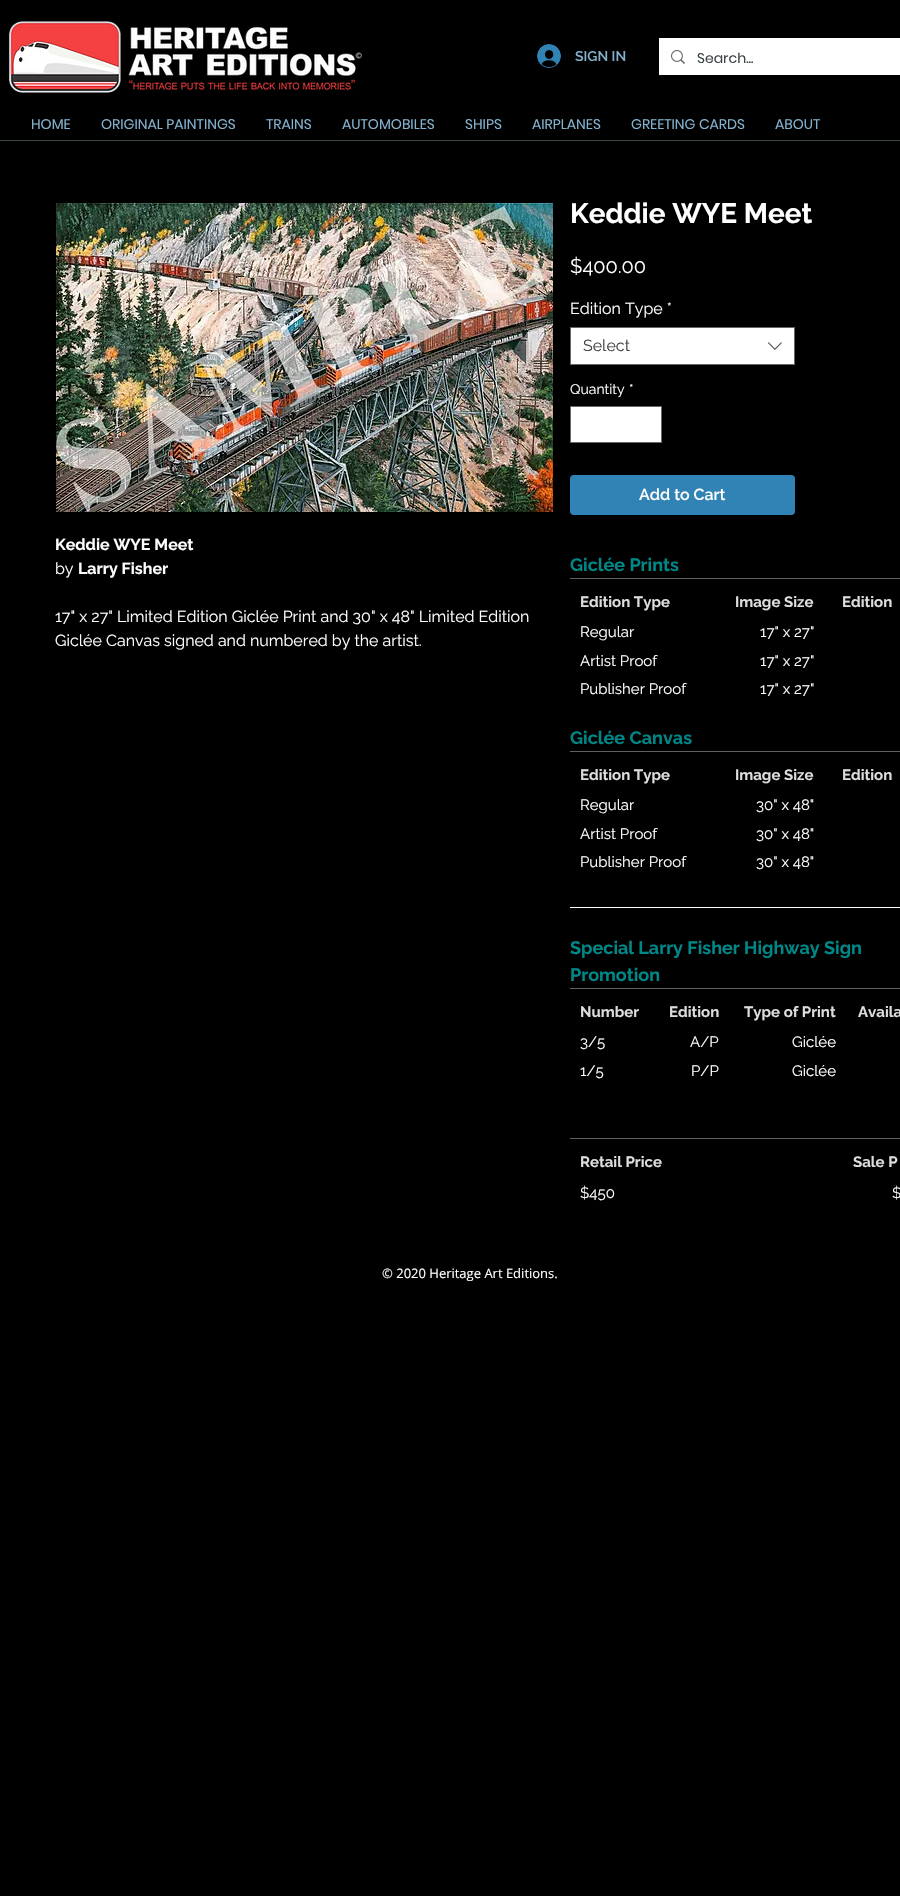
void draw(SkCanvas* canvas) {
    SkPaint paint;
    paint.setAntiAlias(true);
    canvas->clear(0xFF000000);
    canvas->drawImageRect(SkImages::DeferredFromEncodedData(SkData::MakeFromFileName("img1.png")), SkRect::MakeXYWH(8, 21, 354, 72), SkSamplingOptions());
    canvas->drawImageRect(SkImages::DeferredFromEncodedData(SkData::MakeFromFileName("img2.png")), SkRect::MakeXYWH(537, 44, 24, 24), SkSamplingOptions());
    SkFont font1(fontMgr->matchFamilyStyle("Raleway", SkFontStyle(600, SkFontStyle::kNormal_Width, SkFontStyle::kUpright_Slant)), 14);
    font1.setSubpixel(true);
    paint.setColor(0xFF83B1CE);
    canvas->drawString("SIGN IN", 575, 61, font1, paint);
    paint.setColor(0xFFFFFFFF);
    canvas->drawRect(SkRect::MakeXYWH(659, 38, 241, 37), paint);
    canvas->drawImageRect(SkImages::DeferredFromEncodedData(SkData::MakeFromFileName("img3.png")), SkRect::MakeXYWH(671, 50, 14, 14), SkSamplingOptions());
    SkFont font2(fontMgr->matchFamilyStyle("Poppins", SkFontStyle::Normal()), 14);
    font2.setSubpixel(true);
    paint.setColor(0xFF3C4547);
    canvas->drawString("Search...", 697, 63, font2, paint);
    paint.setColor(0xFF83B1CE);
    canvas->drawString("HOME", 31, 129, font2, paint);
    canvas->drawString("ORIGINAL PAINTINGS", 101, 129, font2, paint);
    canvas->drawString("TRAINS", 266, 129, font2, paint);
    canvas->drawString("AUTOMOBILES", 342, 129, font2, paint);
    canvas->drawString("SHIPS", 465, 129, font2, paint);
    canvas->drawString("AIRPLANES", 532, 129, font2, paint);
    canvas->drawString("GREETING CARDS", 631, 129, font2, paint);
    canvas->drawString("ABOUT", 775, 129, font2, paint);
    paint.setColor(0xFF3C4547);
    canvas->drawRect(SkRect::MakeXYWH(0, 140, 900, 1), paint);
    canvas->drawImageRect(SkImages::DeferredFromEncodedData(SkData::MakeFromFileName("img4.png")), SkRect::MakeXYWH(56, 203, 497, 309), SkSamplingOptions());
    SkFont font3(fontMgr->matchFamilyStyle("Raleway", SkFontStyle::Bold()), 16);
    font3.setSubpixel(true);
    paint.setColor(0xFFFFFFFF);
    canvas->drawString("Keddie WYE Meet", 55, 550, font3, paint);
    SkFont font4(fontMgr->matchFamilyStyle("Raleway", SkFontStyle::Normal()), 16);
    font4.setSubpixel(true);
    canvas->drawString("by", 55, 574, font4, paint);
    canvas->drawString("Larry Fisher", 78, 574, font3, paint);
    canvas->drawString("17\" x 27\" Limited Edition Giclée Print and 30\" x 48\" Limited Edition", 55, 622, font4, paint);
    canvas->drawString("Giclée Canvas signed and numbered by the artist.", 55, 646, font4, paint);
    SkFont font5(fontMgr->matchFamilyStyle("Raleway", SkFontStyle::Bold()), 28);
    font5.setSubpixel(true);
    canvas->drawString("Keddie WYE Meet", 570, 223, font5, paint);
    SkFont font6(fontMgr->matchFamilyStyle("Raleway", SkFontStyle::Normal()), 20);
    font6.setSubpixel(true);
    canvas->drawString("$400.00", 570, 273, font6, paint);
    canvas->drawString("Edition Type *", 570, 314, font4, paint);
    canvas->drawRect(SkRect::MakeXYWH(570.5f, 327.5f, 224, 37), paint);
    paint.setStyle(SkPaint::kStroke_Style);
    paint.setStrokeWidth(1);
    paint.setColor(0xFF666666);
    canvas->drawRect(SkRect::MakeXYWH(570.5f, 327.5f, 224, 37), paint);
    paint.setStyle(SkPaint::kFill_Style);
    paint.setColor(0xFF444444);
    canvas->drawString("Select", 583, 351, font4, paint);
    canvas->drawImageRect(SkImages::DeferredFromEncodedData(SkData::MakeFromFileName("img5.png")), SkRect::MakeXYWH(767, 342, 15, 8), SkSamplingOptions());
    SkFont font7(fontMgr->matchFamilyStyle("Raleway", SkFontStyle::Normal()), 14);
    font7.setSubpixel(true);
    paint.setColor(0xFFFFFFFF);
    canvas->drawString("Quantity", 570, 394, font7, paint);
    canvas->drawString("*", 629, 394, font7, paint);
    canvas->drawRect(SkRect::MakeXYWH(570.5f, 406.5f, 91, 36), paint);
    paint.setStyle(SkPaint::kStroke_Style);
    paint.setColor(0xFF666666);
    canvas->drawRect(SkRect::MakeXYWH(570.5f, 406.5f, 91, 36), paint);
    paint.setStyle(SkPaint::kFill_Style);
    paint.setColor(0xFF3182B5);
    canvas->drawRoundRect(SkRect::MakeXYWH(570, 475, 225, 40), 4, 4, paint);
    SkFont font8(fontMgr->matchFamilyStyle("Raleway", SkFontStyle(600, SkFontStyle::kNormal_Width, SkFontStyle::kUpright_Slant)), 16);
    font8.setSubpixel(true);
    paint.setColor(0xFFFFFFFF);
    canvas->drawString("Add to Cart", 639, 500, font8, paint);
    canvas->drawRect(SkRect::MakeXYWH(570, 907, 330, 1), paint);
    paint.setColor(0xFF606060);
    canvas->drawRect(SkRect::MakeXYWH(570, 578, 330, 1), paint);
    SkFont font9(fontMgr->matchFamilyStyle("Raleway", SkFontStyle::Bold()), 18);
    font9.setSubpixel(true);
    paint.setColor(0xFF008888);
    canvas->drawString("Giclée Prints", 570, 571, font9, paint);
    SkFont font10(fontMgr->matchFamilyStyle("Raleway", SkFontStyle::Bold()), 15);
    font10.setSubpixel(true);
    paint.setColor(0xFFDDDDDD);
    canvas->drawString("Edition Type", 580, 607, font10, paint);
    canvas->drawString("Image Size", 735, 607, font10, paint);
    canvas->drawString("Edition", 842, 607, font10, paint);
    SkFont font11(fontMgr->matchFamilyStyle("Raleway", SkFontStyle::Normal()), 15);
    font11.setSubpixel(true);
    paint.setColor(0xFFFFFFFF);
    canvas->drawString("Regular", 580, 637, font11, paint);
    canvas->drawString("17\" x 27\"", 760, 637, font11, paint);
    canvas->drawString("Artist Proof", 580, 666, font11, paint);
    canvas->drawString("17\" x 27\"", 760, 666, font11, paint);
    canvas->drawString("Publisher Proof", 580, 694, font11, paint);
    canvas->drawString("17\" x 27\"", 760, 694, font11, paint);
    paint.setColor(0xFF606060);
    canvas->drawRect(SkRect::MakeXYWH(570, 751, 330, 1), paint);
    paint.setColor(0xFF008888);
    canvas->drawString("Giclée Canvas", 570, 744, font9, paint);
    paint.setColor(0xFFDDDDDD);
    canvas->drawString("Edition Type", 580, 780, font10, paint);
    canvas->drawString("Image Size", 735, 780, font10, paint);
    canvas->drawString("Edition", 842, 780, font10, paint);
    paint.setColor(0xFFFFFFFF);
    canvas->drawString("Regular", 580, 810, font11, paint);
    canvas->drawString("30\" x 48\"", 756, 810, font11, paint);
    canvas->drawString("Artist Proof", 580, 839, font11, paint);
    canvas->drawString("30\" x 48\"", 756, 839, font11, paint);
    canvas->drawString("Publisher Proof", 580, 867, font11, paint);
    canvas->drawString("30\" x 48\"", 756, 867, font11, paint);
    paint.setColor(0xFF606060);
    canvas->drawRect(SkRect::MakeXYWH(570, 988, 330, 1), paint);
    paint.setColor(0xFF008888);
    canvas->drawString("Special Larry Fisher Highway Sign", 570, 954, font9, paint);
    canvas->drawString("Promotion", 570, 981, font9, paint);
    paint.setColor(0xFFDDDDDD);
    canvas->drawString("Number", 580, 1017, font10, paint);
    canvas->drawString("Edition", 669, 1017, font10, paint);
    canvas->drawString("Type of Print", 744, 1017, font10, paint);
    canvas->drawString("Availa", 858, 1017, font10, paint);
    paint.setColor(0xFFFFFFFF);
    canvas->drawString("3/5", 580, 1047, font11, paint);
    canvas->drawString("1/5", 580, 1076, font11, paint);
    canvas->drawString("A/P", 690, 1047, font11, paint);
    canvas->drawString("P/P", 691, 1076, font11, paint);
    canvas->drawString("Giclée", 792, 1047, font11, paint);
    canvas->drawString("Giclée", 792, 1076, font11, paint);
    paint.setColor(0xFF606060);
    canvas->drawRect(SkRect::MakeXYWH(570, 1138, 330, 1), paint);
    paint.setColor(0xFFDDDDDD);
    canvas->drawString("Retail Price", 580, 1167, font10, paint);
    canvas->drawString("Sale P", 853, 1167, font10, paint);
    paint.setColor(0xFFFFFFFF);
    canvas->drawString("$450", 580, 1198, font11, paint);
    canvas->drawString("$", 892, 1198, font11, paint);
    SkFont font12(fontMgr->matchFamilyStyle("Open Sans", SkFontStyle::Normal()), 13);
    font12.setSubpixel(true);
    canvas->drawString("© 2020 Heritage Art Editions.", 382, 1278, font12, paint);
}
